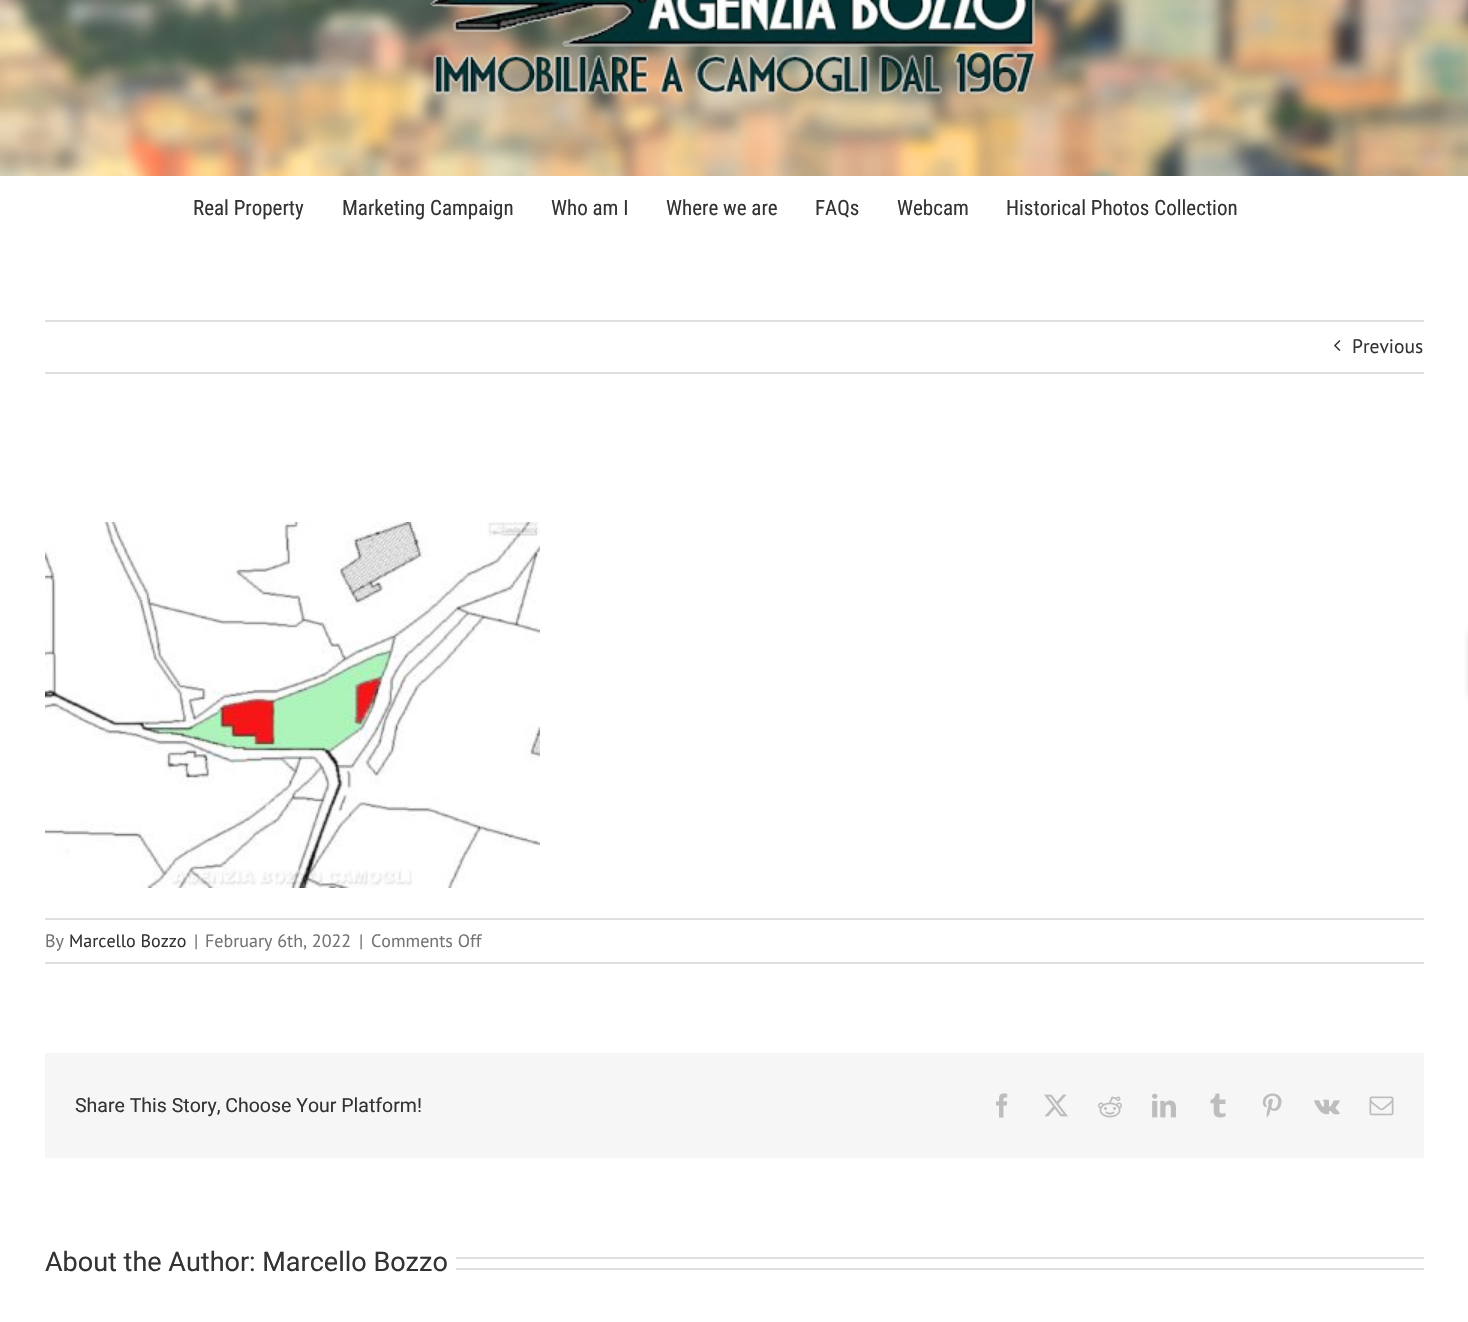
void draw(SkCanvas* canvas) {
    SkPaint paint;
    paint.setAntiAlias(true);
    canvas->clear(0xFFFFFFFF);
    canvas->drawImageRect(SkImages::DeferredFromEncodedData(SkData::MakeFromFileName("img1.png")), SkRect::MakeXYWH(0, 0, 1468, 176), SkSamplingOptions());
    canvas->drawImageRect(SkImages::DeferredFromEncodedData(SkData::MakeFromFileName("img2.png")), SkRect::MakeXYWH(430, 0, 606, 95), SkSamplingOptions());
    SkFont font1(fontMgr->matchFamilyStyle("Roboto Condensed", SkFontStyle::Normal()), 21);
    font1.setSubpixel(true);
    paint.setColor(0xFF333333);
    canvas->drawString("Real Property", 193, 215, font1, paint);
    canvas->drawString("Marketing Campaign", 342, 215, font1, paint);
    canvas->drawString("Who am I", 551, 215, font1, paint);
    canvas->drawString("Where we are", 666, 215, font1, paint);
    canvas->drawString("FAQs", 815, 215, font1, paint);
    canvas->drawString("Webcam", 897, 215, font1, paint);
    canvas->drawString("Historical Photos Collection", 1006, 215, font1, paint);
    paint.setColor(0xFFE0DEDE);
    canvas->drawRect(SkRect::MakeXYWH(45, 320, 1379, 2), paint);
    canvas->drawRect(SkRect::MakeXYWH(45, 372, 1379, 2), paint);
    canvas->drawImageRect(SkImages::DeferredFromEncodedData(SkData::MakeFromFileName("img3.png")), SkRect::MakeXYWH(1334, 340, 7, 11), SkSamplingOptions());
    SkFont font2(fontMgr->matchFamilyStyle("PT Sans", SkFontStyle::Normal()), 19.5f);
    font2.setSubpixel(true);
    paint.setColor(0xFF333333);
    canvas->drawString("Previous", 1352, 353, font2, paint);
    canvas->drawImageRect(SkImages::DeferredFromEncodedData(SkData::MakeFromFileName("img4.png")), SkRect::MakeXYWH(45, 522, 495, 366), SkSamplingOptions());
    paint.setColor(0xFFE0DEDE);
    canvas->drawRect(SkRect::MakeXYWH(45, 918, 1379, 2), paint);
    canvas->drawRect(SkRect::MakeXYWH(45, 962, 1379, 2), paint);
    SkFont font3(fontMgr->matchFamilyStyle("PT Sans", SkFontStyle::Normal()), 18);
    font3.setSubpixel(true);
    paint.setColor(0xFF747474);
    canvas->drawString("By", 45, 947, font3, paint);
    paint.setColor(0xFF333333);
    canvas->drawString("Marcello Bozzo", 69, 947, font3, paint);
    paint.setColor(0xFF747474);
    canvas->drawString("|", 194, 947, font3, paint);
    canvas->drawString("February 6th, 2022", 205, 947, font3, paint);
    canvas->drawString("|", 359, 947, font3, paint);
    canvas->drawString("Comments Off", 371, 947, font3, paint);
    paint.setColor(0xFFF6F6F6);
    canvas->drawRect(SkRect::MakeXYWH(45, 1053, 1379, 105), paint);
    SkFont font4(fontMgr->matchFamilyStyle("Roboto", SkFontStyle::Normal()), 19.5f);
    font4.setSubpixel(true);
    paint.setColor(0xFF333333);
    canvas->drawString("Share This Story, Choose Your Platform!", 75, 1112, font4, paint);
    canvas->drawImageRect(SkImages::DeferredFromEncodedData(SkData::MakeFromFileName("img5.png")), SkRect::MakeXYWH(996, 1093, 12, 25), SkSamplingOptions());
    canvas->drawImageRect(SkImages::DeferredFromEncodedData(SkData::MakeFromFileName("img6.png")), SkRect::MakeXYWH(1044, 1094, 24, 23), SkSamplingOptions());
    canvas->drawImageRect(SkImages::DeferredFromEncodedData(SkData::MakeFromFileName("img7.png")), SkRect::MakeXYWH(1098, 1096, 24, 22), SkSamplingOptions());
    canvas->drawImageRect(SkImages::DeferredFromEncodedData(SkData::MakeFromFileName("img8.png")), SkRect::MakeXYWH(1152, 1093, 24, 25), SkSamplingOptions());
    canvas->drawImageRect(SkImages::DeferredFromEncodedData(SkData::MakeFromFileName("img9.png")), SkRect::MakeXYWH(1210, 1093, 16, 25), SkSamplingOptions());
    canvas->drawImageRect(SkImages::DeferredFromEncodedData(SkData::MakeFromFileName("img10.png")), SkRect::MakeXYWH(1262, 1093, 20, 25), SkSamplingOptions());
    canvas->drawImageRect(SkImages::DeferredFromEncodedData(SkData::MakeFromFileName("img11.png")), SkRect::MakeXYWH(1314, 1099, 26, 16), SkSamplingOptions());
    canvas->drawImageRect(SkImages::DeferredFromEncodedData(SkData::MakeFromFileName("img12.png")), SkRect::MakeXYWH(1369, 1096, 25, 20), SkSamplingOptions());
    SkFont font5(fontMgr->matchFamilyStyle("Roboto", SkFontStyle::Normal()), 27);
    font5.setSubpixel(true);
    canvas->drawString("About the Author: Marcello Bozzo", 45, 1271, font5, paint);
    paint.setColor(0xFFE0DEDE);
    canvas->drawRect(SkRect::MakeXYWH(456, 1257, 968, 2), paint);
    canvas->drawRect(SkRect::MakeXYWH(456, 1268, 968, 2), paint);
    paint.setColor(0xFF777777);
    paint.setMaskFilter(SkMaskFilter::MakeBlur(kNormal_SkBlurStyle, 4));
    canvas->drawRect(SkRect::MakeXYWH(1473, 632, 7, 64), paint);
    paint.setMaskFilter(nullptr);
}
